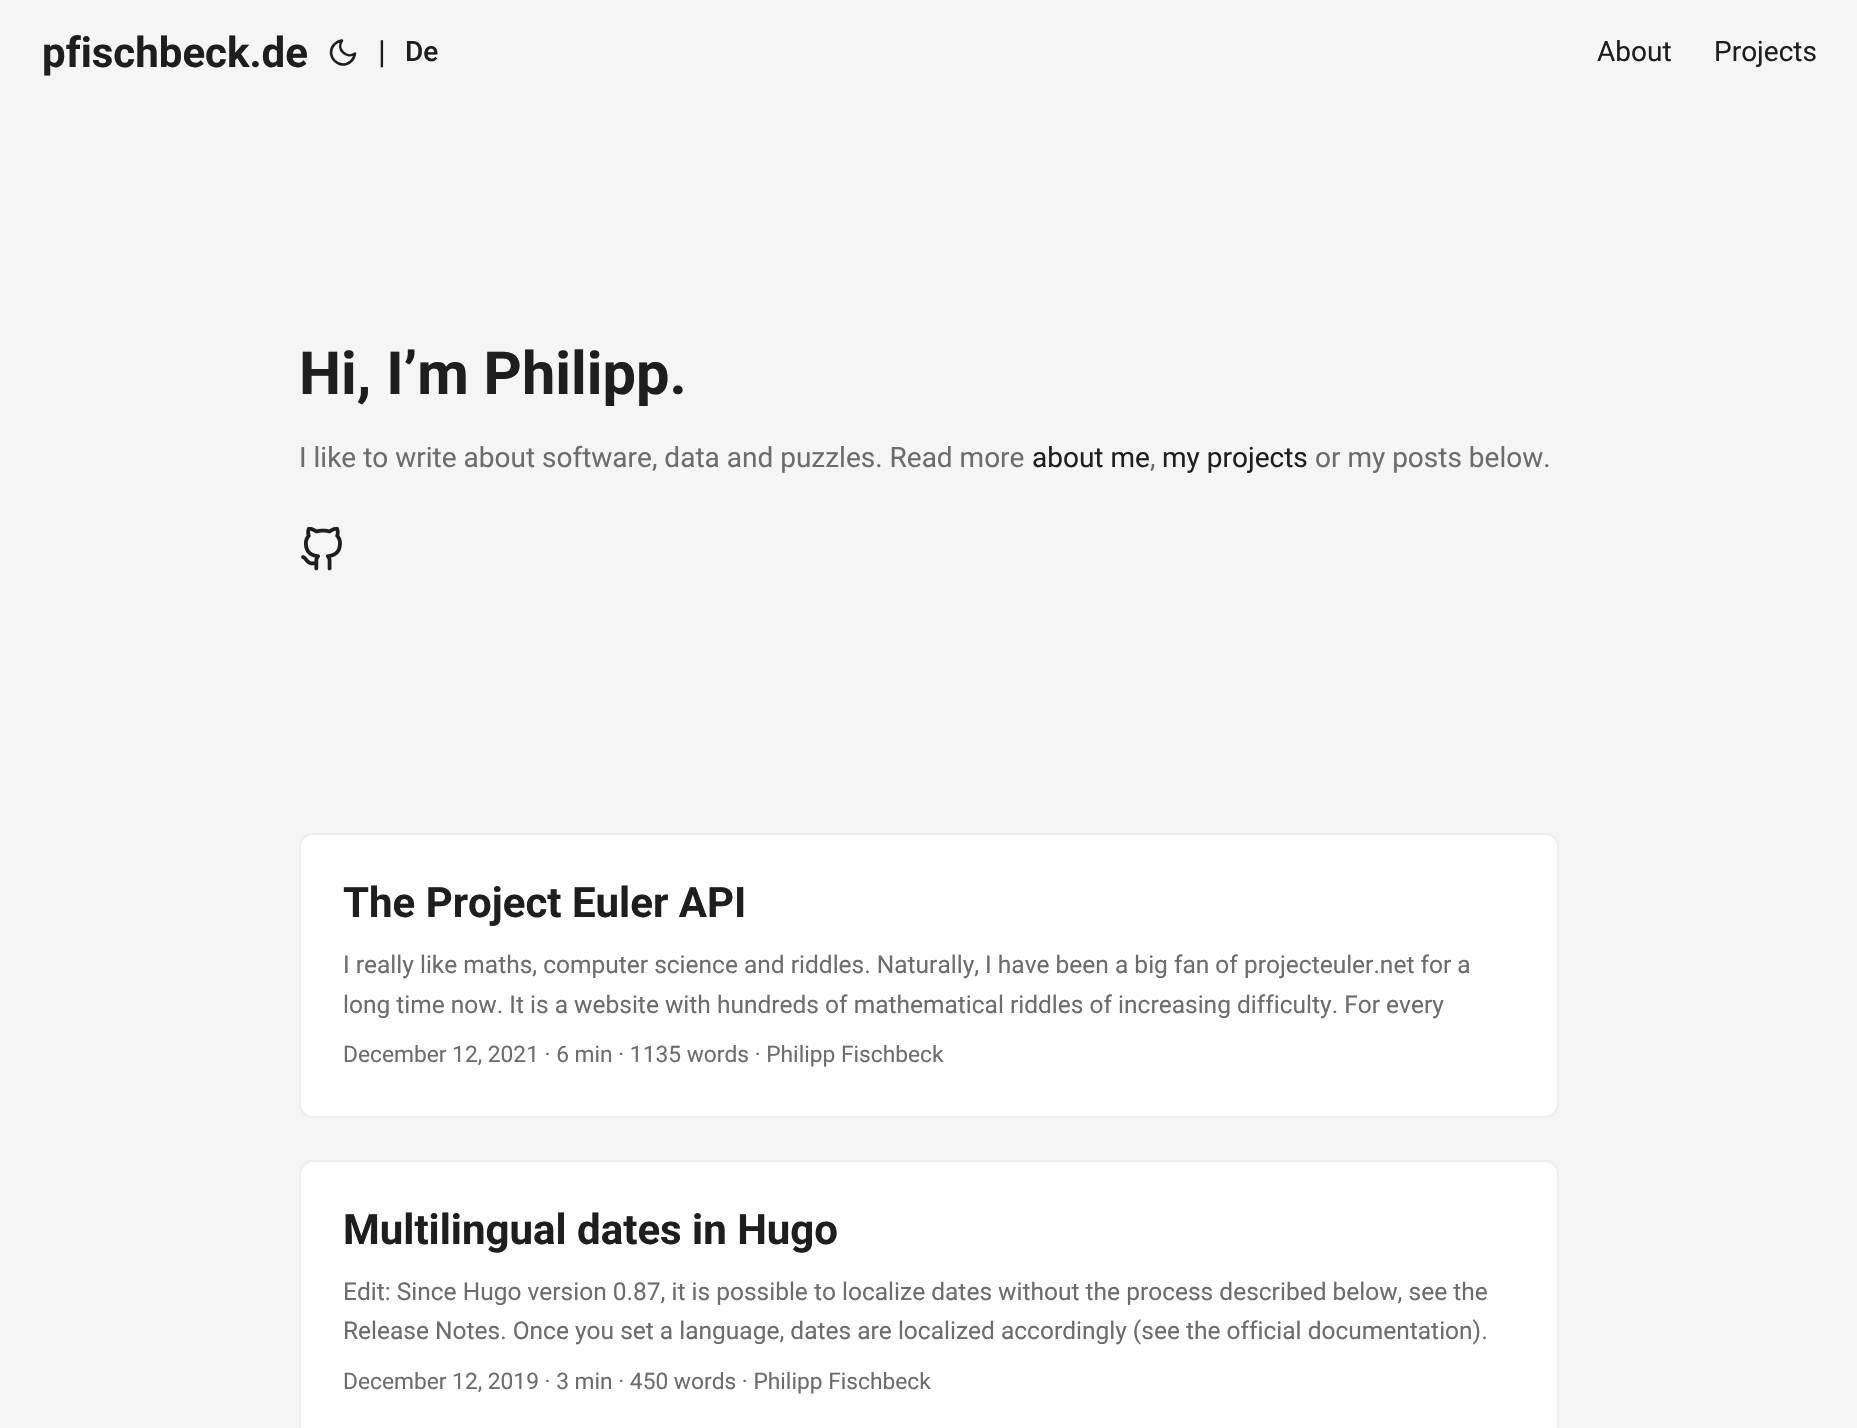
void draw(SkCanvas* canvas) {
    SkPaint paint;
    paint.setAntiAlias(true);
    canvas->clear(0xFFF5F5F5);
    SkFont font1(fontMgr->matchFamilyStyle("Roboto", SkFontStyle::Bold()), 42);
    font1.setSubpixel(true);
    paint.setColor(0xFF1E1E1E);
    canvas->drawString("pfischbeck.de", 42, 67, font1, paint);
    paint.setStyle(SkPaint::kStroke_Style);
    paint.setStrokeWidth(2.6f);
    paint.setStrokeCap(SkPaint::kRound_Cap);
    paint.setStrokeJoin(SkPaint::kRound_Join);
    canvas->drawPath(SkPathBuilder().moveTo(355, 53.5f).cubicTo(354, 60, 349, 64.5f, 342.5f, 64.5f).cubicTo(336.5f, 64, 331.5f, 59, 331, 53).cubicTo(331, 46.5f, 335.5f, 41.5f, 342, 40.5f).cubicTo(336, 49, 346.5f, 59.5f, 355, 53.5f).close().detach(), paint);
    SkFont font2(fontMgr->matchFamilyStyle("Roboto", SkFontStyle::Normal()), 32);
    font2.setSubpixel(true);
    paint.setStyle(SkPaint::kFill_Style);
    canvas->drawString("|", 378, 63, font2, paint);
    SkFont font3(fontMgr->matchFamilyStyle("Roboto", SkFontStyle(500, SkFontStyle::kNormal_Width, SkFontStyle::kUpright_Slant)), 28);
    font3.setSubpixel(true);
    canvas->drawString("De", 405, 61, font3, paint);
    SkFont font4(fontMgr->matchFamilyStyle("Roboto", SkFontStyle::Normal()), 28);
    font4.setSubpixel(true);
    canvas->drawString("About", 1597, 61, font4, paint);
    canvas->drawString("Projects", 1714, 61, font4, paint);
    SkFont font5(fontMgr->matchFamilyStyle("Roboto", SkFontStyle::Bold()), 59.5f);
    font5.setSubpixel(true);
    canvas->drawString("Hi, I’m Philipp.", 299, 394, font5, paint);
    paint.setColor(0xFF6C6C6C);
    canvas->drawString("I like to write about software, data and puzzles. Read more", 299, 467, font4, paint);
    paint.setColor(0xFF1E1E1E);
    canvas->drawString("about me", 1032, 467, font4, paint);
    paint.setColor(0xFF6C6C6C);
    canvas->drawString(",", 1150, 467, font4, paint);
    paint.setColor(0xFF1E1E1E);
    canvas->drawString("my projects", 1162, 467, font4, paint);
    paint.setColor(0xFF6C6C6C);
    canvas->drawString("or my posts below.", 1315, 467, font4, paint);
    canvas->drawImageRect(SkImages::DeferredFromEncodedData(SkData::MakeFromFileName("img1.png")), SkRect::MakeXYWH(301, 527, 41, 44), SkSamplingOptions());
    paint.setColor(0xFFFFFFFF);
    canvas->drawRoundRect(SkRect::MakeXYWH(300, 834, 1258, 283), 13, 13, paint);
    paint.setStyle(SkPaint::kStroke_Style);
    paint.setStrokeWidth(2);
    paint.setStrokeCap(SkPaint::kButt_Cap);
    paint.setStrokeJoin(SkPaint::kMiter_Join);
    paint.setColor(0xFFEEEEEE);
    canvas->drawRoundRect(SkRect::MakeXYWH(300, 834, 1258, 283), 13, 13, paint);
    paint.setStyle(SkPaint::kFill_Style);
    paint.setColor(0xFF1E1E1E);
    canvas->drawString("The Project Euler API", 343, 917, font1, paint);
    SkFont font6(fontMgr->matchFamilyStyle("Roboto", SkFontStyle::Normal()), 24.5f);
    font6.setSubpixel(true);
    paint.setColor(0xFF6C6C6C);
    canvas->drawString("I really like maths, computer science and riddles. Naturally, I have been a big fan of projecteuler.net for a", 343, 973, font6, paint);
    canvas->drawString("long time now. It is a website with hundreds of mathematical riddles of increasing difficulty. For every", 343, 1013, font6, paint);
    SkFont font7(fontMgr->matchFamilyStyle("Roboto", SkFontStyle::Normal()), 22.75f);
    font7.setSubpixel(true);
    canvas->drawString("December 12, 2021 · 6 min · 1135 words · Philipp Fischbeck", 343, 1062, font7, paint);
    paint.setColor(0xFFFFFFFF);
    canvas->drawRoundRect(SkRect::MakeXYWH(300, 1161, 1258, 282), 13, 13, paint);
    paint.setStyle(SkPaint::kStroke_Style);
    paint.setColor(0xFFEEEEEE);
    canvas->drawRoundRect(SkRect::MakeXYWH(300, 1161, 1258, 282), 13, 13, paint);
    paint.setStyle(SkPaint::kFill_Style);
    paint.setColor(0xFF1E1E1E);
    canvas->drawString("Multilingual dates in Hugo", 343, 1244, font1, paint);
    paint.setColor(0xFF6C6C6C);
    canvas->drawString("Edit: Since Hugo version 0.87, it is possible to localize dates without the process described below, see the", 343, 1300, font6, paint);
    canvas->drawString("Release Notes. Once you set a language, dates are localized accordingly (see the official documentation).", 343, 1339, font6, paint);
    canvas->drawString("December 12, 2019 · 3 min · 450 words · Philipp Fischbeck", 343, 1389, font7, paint);
}
